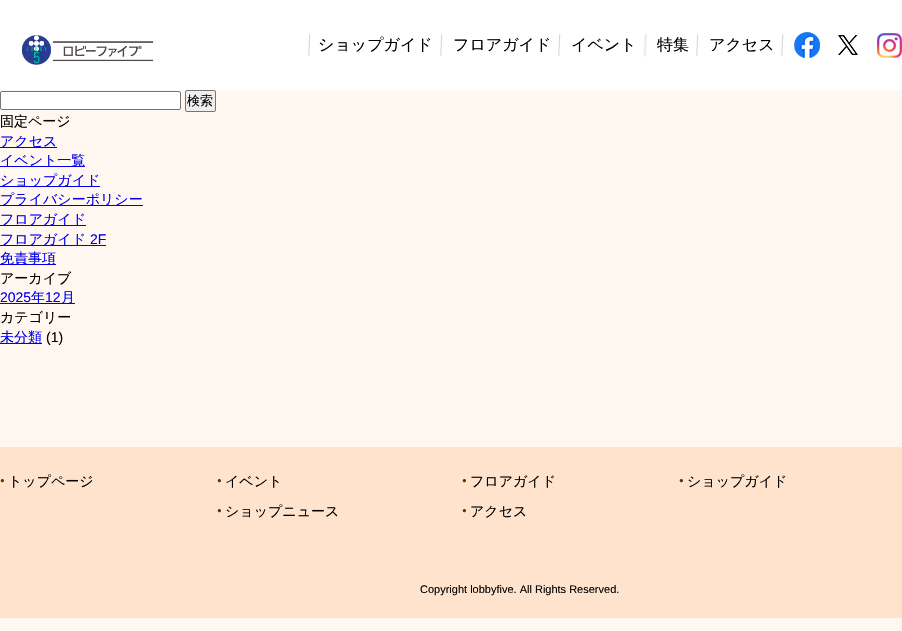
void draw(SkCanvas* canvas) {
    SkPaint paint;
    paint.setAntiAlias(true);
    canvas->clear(0xFFFFF7F0);
    paint.setColor(0xFFFFFFFF);
    canvas->drawRect(SkRect::MakeXYWH(0, 0, 902, 90), paint);
    canvas->drawImageRect(SkImages::DeferredFromEncodedData(SkData::MakeFromFileName("img1.png")), SkRect::MakeXYWH(22, 35, 132, 30), SkSamplingOptions());
    canvas->drawImageRect(SkImages::DeferredFromEncodedData(SkData::MakeFromFileName("img2.png")), SkRect::MakeXYWH(308, 34, 3, 22), SkSamplingOptions());
    canvas->drawImageRect(SkImages::DeferredFromEncodedData(SkData::MakeFromFileName("img2.png")), SkRect::MakeXYWH(440, 34, 3, 22), SkSamplingOptions());
    SkFont font1(fontMgr->matchFamilyStyle("WenQuanYi Zen Hei", SkFontStyle(500, SkFontStyle::kNormal_Width, SkFontStyle::kUpright_Slant)), 16);
    font1.setSubpixel(true);
    paint.setColor(0xFF000000);
    canvas->drawString("ショップガイド", 318, 50, font1, paint);
    canvas->drawImageRect(SkImages::DeferredFromEncodedData(SkData::MakeFromFileName("img2.png")), SkRect::MakeXYWH(558, 34, 3, 22), SkSamplingOptions());
    canvas->drawString("フロアガイド", 453, 50, font1, paint);
    canvas->drawImageRect(SkImages::DeferredFromEncodedData(SkData::MakeFromFileName("img3.png")), SkRect::MakeXYWH(643, 34, 4, 23), SkSamplingOptions());
    canvas->drawString("イベント", 571, 50, font1, paint);
    canvas->drawImageRect(SkImages::DeferredFromEncodedData(SkData::MakeFromFileName("img2.png")), SkRect::MakeXYWH(696, 34, 3, 22), SkSamplingOptions());
    canvas->drawString("特集", 657, 50, font1, paint);
    canvas->drawImageRect(SkImages::DeferredFromEncodedData(SkData::MakeFromFileName("img2.png")), SkRect::MakeXYWH(781, 34, 3, 22), SkSamplingOptions());
    canvas->drawString("アクセス", 709, 50, font1, paint);
    canvas->drawImageRect(SkImages::DeferredFromEncodedData(SkData::MakeFromFileName("img4.png")), SkRect::MakeXYWH(794, 32, 26, 26), SkSamplingOptions());
    canvas->drawImageRect(SkImages::DeferredFromEncodedData(SkData::MakeFromFileName("img5.png")), SkRect::MakeXYWH(838, 35, 20, 20), SkSamplingOptions());
    canvas->drawImageRect(SkImages::DeferredFromEncodedData(SkData::MakeFromFileName("img6.png")), SkRect::MakeXYWH(877, 33, 25, 25), SkSamplingOptions());
    paint.setColor(0xFFFFFFFF);
    canvas->drawRoundRect(SkRect::MakeXYWH(0.5f, 91.5f, 180, 18), 1.5f, 1.5f, paint);
    paint.setStyle(SkPaint::kStroke_Style);
    paint.setStrokeWidth(1);
    paint.setColor(0xFF767676);
    canvas->drawRoundRect(SkRect::MakeXYWH(0.5f, 91.5f, 180, 18), 1.5f, 1.5f, paint);
    paint.setStyle(SkPaint::kFill_Style);
    paint.setColor(0xFFEFEFEF);
    canvas->drawRoundRect(SkRect::MakeXYWH(185.5f, 90.5f, 30, 21), 1.5f, 1.5f, paint);
    paint.setStyle(SkPaint::kStroke_Style);
    paint.setColor(0xFF767676);
    canvas->drawRoundRect(SkRect::MakeXYWH(185.5f, 90.5f, 30, 21), 1.5f, 1.5f, paint);
    SkFont font2(fontMgr->matchFamilyStyle("WenQuanYi Zen Hei", SkFontStyle(500, SkFontStyle::kNormal_Width, SkFontStyle::kUpright_Slant)), 13);
    font2.setSubpixel(true);
    paint.setStyle(SkPaint::kFill_Style);
    paint.setColor(0xFF000000);
    canvas->drawString("検索", 187, 105, font2, paint);
    SkFont font3(fontMgr->matchFamilyStyle("WenQuanYi Zen Hei", SkFontStyle(500, SkFontStyle::kNormal_Width, SkFontStyle::kUpright_Slant)), 14);
    font3.setSubpixel(true);
    canvas->drawString("固定ページ", 0, 126, font3, paint);
    paint.setColor(0xFF0000EE);
    canvas->drawRect(SkRect::MakeXYWH(0, 147, 57, 1), paint);
    canvas->drawString("アクセス", 0, 146, font3, paint);
    canvas->drawRect(SkRect::MakeXYWH(0, 166, 85, 1), paint);
    canvas->drawString("イベント一覧", 0, 165, font3, paint);
    canvas->drawRect(SkRect::MakeXYWH(0, 186, 100, 1), paint);
    canvas->drawString("ショップガイド", 0, 185, font3, paint);
    canvas->drawRect(SkRect::MakeXYWH(0, 205, 143, 1), paint);
    canvas->drawString("プライバシーポリシー", 0, 204, font3, paint);
    canvas->drawRect(SkRect::MakeXYWH(0, 225, 86, 1), paint);
    canvas->drawString("フロアガイド", 0, 224, font3, paint);
    canvas->drawRect(SkRect::MakeXYWH(0, 245, 106, 1), paint);
    canvas->drawString("フロアガイド", 0, 244, font3, paint);
    SkFont font4(fontMgr->matchFamilyStyle("Liberation Sans", SkFontStyle::Normal()), 14);
    font4.setSubpixel(true);
    canvas->drawString("2F", 90, 244, font4, paint);
    canvas->drawRect(SkRect::MakeXYWH(0, 264, 56, 1), paint);
    canvas->drawString("免責事項", 0, 263, font3, paint);
    paint.setColor(0xFF000000);
    canvas->drawString("アーカイブ", 0, 283, font3, paint);
    paint.setColor(0xFF0000EE);
    canvas->drawString("2025", 0, 302, font4, paint);
    canvas->drawRect(SkRect::MakeXYWH(0, 303, 75, 1), paint);
    canvas->drawString("年", 31, 302, font3, paint);
    canvas->drawString("12", 45, 302, font4, paint);
    canvas->drawString("月", 61, 302, font3, paint);
    paint.setColor(0xFF000000);
    canvas->drawString("カテゴリー", 0, 322, font3, paint);
    paint.setColor(0xFF0000EE);
    canvas->drawRect(SkRect::MakeXYWH(0, 343, 42, 1), paint);
    canvas->drawString("未分類", 0, 342, font3, paint);
    paint.setColor(0xFF000000);
    canvas->drawString("(1)", 46, 342, font4, paint);
    paint.setColor(0xFFFFE3CC);
    canvas->drawRect(SkRect::MakeXYWH(0, 447, 902, 171), paint);
    canvas->drawImageRect(SkImages::DeferredFromEncodedData(SkData::MakeFromFileName("img7.png")), SkRect::MakeXYWH(0, 479, 4, 4), SkSamplingOptions());
    paint.setColor(0xFF000000);
    canvas->drawString("トップページ", 8, 486, font3, paint);
    canvas->drawImageRect(SkImages::DeferredFromEncodedData(SkData::MakeFromFileName("img7.png")), SkRect::MakeXYWH(217, 479, 4, 4), SkSamplingOptions());
    canvas->drawString("イベント", 225, 486, font3, paint);
    canvas->drawImageRect(SkImages::DeferredFromEncodedData(SkData::MakeFromFileName("img7.png")), SkRect::MakeXYWH(217, 509, 4, 4), SkSamplingOptions());
    canvas->drawString("ショップニュース", 225, 516, font3, paint);
    canvas->drawImageRect(SkImages::DeferredFromEncodedData(SkData::MakeFromFileName("img7.png")), SkRect::MakeXYWH(462, 479, 4, 4), SkSamplingOptions());
    canvas->drawString("フロアガイド", 470, 486, font3, paint);
    canvas->drawImageRect(SkImages::DeferredFromEncodedData(SkData::MakeFromFileName("img7.png")), SkRect::MakeXYWH(462, 509, 4, 4), SkSamplingOptions());
    canvas->drawString("アクセス", 470, 516, font3, paint);
    canvas->drawImageRect(SkImages::DeferredFromEncodedData(SkData::MakeFromFileName("img7.png")), SkRect::MakeXYWH(679, 479, 4, 4), SkSamplingOptions());
    canvas->drawString("ショップガイド", 687, 486, font3, paint);
    SkFont font5(fontMgr->matchFamilyStyle("Liberation Sans", SkFontStyle::Normal()), 11);
    font5.setSubpixel(true);
    canvas->drawString("Copyright lobbyfive. All Rights Reserved.", 420, 593, font5, paint);
}
